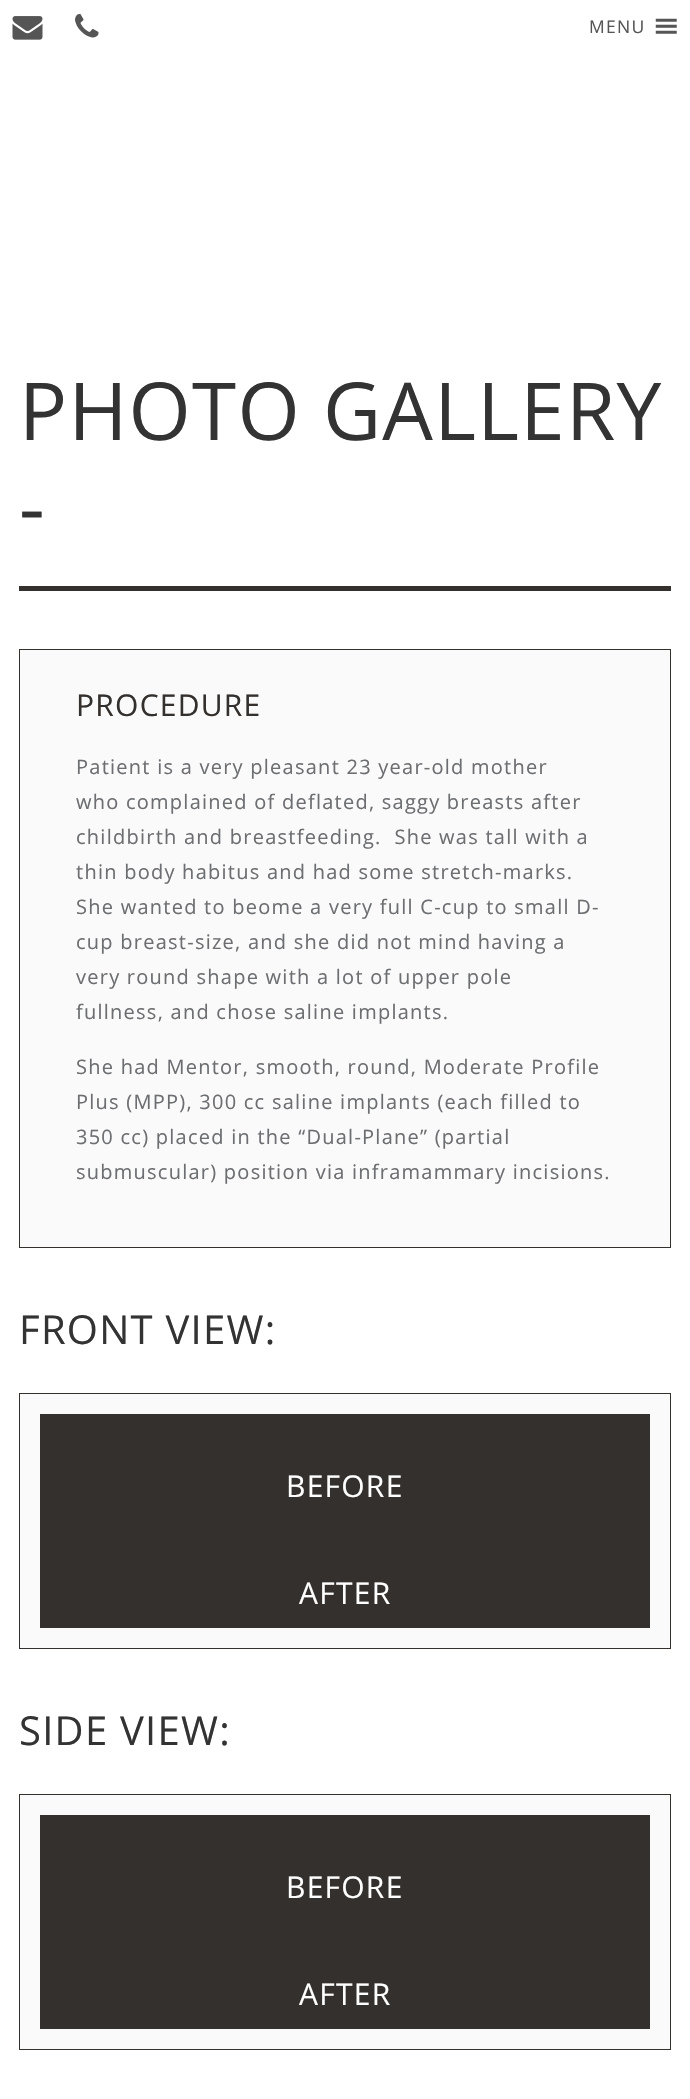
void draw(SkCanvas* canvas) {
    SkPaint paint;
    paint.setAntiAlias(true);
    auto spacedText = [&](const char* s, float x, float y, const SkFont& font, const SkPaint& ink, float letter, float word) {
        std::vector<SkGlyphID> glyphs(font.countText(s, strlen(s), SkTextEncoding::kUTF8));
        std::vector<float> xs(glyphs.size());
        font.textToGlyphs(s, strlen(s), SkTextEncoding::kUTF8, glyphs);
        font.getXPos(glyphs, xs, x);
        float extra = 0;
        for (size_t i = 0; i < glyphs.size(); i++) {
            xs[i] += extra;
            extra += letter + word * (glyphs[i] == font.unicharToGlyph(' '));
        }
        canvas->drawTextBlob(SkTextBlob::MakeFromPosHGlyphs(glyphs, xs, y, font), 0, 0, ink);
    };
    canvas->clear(0xFFFFFFFF);
    canvas->drawImageRect(SkImages::DeferredFromEncodedData(SkData::MakeFromFileName("img1.png")), SkRect::MakeXYWH(12, 16, 31, 24), SkSamplingOptions());
    canvas->drawImageRect(SkImages::DeferredFromEncodedData(SkData::MakeFromFileName("img2.png")), SkRect::MakeXYWH(75, 14, 24, 24), SkSamplingOptions());
    SkFont font1(fontMgr->matchFamilyStyle("Open Sans", SkFontStyle::Normal()), 17.5f);
    font1.setSubpixel(true);
    paint.setColor(0xFF555555);
    spacedText("MENU", 589, 33, font1, paint, 1.25f, 0);
    canvas->drawImageRect(SkImages::DeferredFromEncodedData(SkData::MakeFromFileName("img3.png")), SkRect::MakeXYWH(655, 18, 22, 16), SkSamplingOptions());
    paint.setColor(0xFF34302D);
    canvas->drawRect(SkRect::MakeXYWH(19, 586, 652, 5), paint);
    SkFont font2(fontMgr->matchFamilyStyle("Open Sans", SkFontStyle::Normal()), 80);
    font2.setSubpixel(true);
    paint.setColor(0xFF333333);
    spacedText("PHOTO GALLERY", 19, 440, font2, paint, 1.25f, 0);
    spacedText("-", 19, 536, font2, paint, 1.25f, 0);
    paint.setColor(0xFFFAFAFA);
    canvas->drawRect(SkRect::MakeXYWH(19.5f, 649.5f, 651, 598), paint);
    paint.setStyle(SkPaint::kStroke_Style);
    paint.setStrokeWidth(1);
    paint.setColor(0xFF34302D);
    canvas->drawRect(SkRect::MakeXYWH(19.5f, 649.5f, 651, 598), paint);
    SkFont font3(fontMgr->matchFamilyStyle("Open Sans", SkFontStyle::Normal()), 30);
    font3.setSubpixel(true);
    paint.setStyle(SkPaint::kFill_Style);
    spacedText("PROCEDURE", 76, 716, font3, paint, 1.25f, 0);
    SkFont font4(fontMgr->matchFamilyStyle("Open Sans", SkFontStyle::Normal()), 20);
    font4.setSubpixel(true);
    paint.setColor(0xFF6D6E71);
    spacedText("Patient is a very pleasant 23 year-old mother", 76, 774, font4, paint, 1.25f, 0);
    spacedText("who complained of deflated, saggy breasts after", 76, 809, font4, paint, 1.25f, 0);
    spacedText("childbirth and breastfeeding.  She was tall with a", 76, 844, font4, paint, 1.25f, 0);
    spacedText("thin body habitus and had some stretch-marks.", 76, 879, font4, paint, 1.25f, 0);
    spacedText("She wanted to beome a very full C-cup to small D-", 76, 914, font4, paint, 1.25f, 0);
    spacedText("cup breast-size, and she did not mind having a", 76, 949, font4, paint, 1.25f, 0);
    spacedText("very round shape with a lot of upper pole", 76, 984, font4, paint, 1.25f, 0);
    spacedText("fullness, and chose saline implants.", 76, 1019, font4, paint, 1.25f, 0);
    spacedText("She had Mentor, smooth, round, Moderate Profile", 76, 1074, font4, paint, 1.25f, 0);
    spacedText("Plus (MPP), 300 cc saline implants (each filled to", 76, 1109, font4, paint, 1.25f, 0);
    spacedText("350 cc) placed in the “Dual-Plane” (partial", 76, 1144, font4, paint, 1.25f, 0);
    spacedText("submuscular) position via inframammary incisions.", 76, 1179, font4, paint, 1.25f, 0);
    SkFont font5(fontMgr->matchFamilyStyle("Open Sans", SkFontStyle::Normal()), 40);
    font5.setSubpixel(true);
    paint.setColor(0xFF333333);
    spacedText("FRONT VIEW:", 19, 1344, font5, paint, 1.25f, 0);
    paint.setColor(0xFFFAFAFA);
    canvas->drawRect(SkRect::MakeXYWH(19.5f, 1393.5f, 651, 255), paint);
    paint.setStyle(SkPaint::kStroke_Style);
    paint.setColor(0xFF34302D);
    canvas->drawRect(SkRect::MakeXYWH(19.5f, 1393.5f, 651, 255), paint);
    paint.setStyle(SkPaint::kFill_Style);
    canvas->drawRect(SkRect::MakeXYWH(40, 1414, 610, 214), paint);
    paint.setColor(0xFFFFFFFF);
    spacedText("BEFORE", 286, 1497, font3, paint, 1.25f, 0);
    spacedText("AFTER", 299, 1604, font3, paint, 1.25f, 0);
    paint.setColor(0xFF333333);
    spacedText("SIDE VIEW:", 19, 1745, font5, paint, 1.25f, 0);
    paint.setColor(0xFFFAFAFA);
    canvas->drawRect(SkRect::MakeXYWH(19.5f, 1794.5f, 651, 255), paint);
    paint.setStyle(SkPaint::kStroke_Style);
    paint.setColor(0xFF34302D);
    canvas->drawRect(SkRect::MakeXYWH(19.5f, 1794.5f, 651, 255), paint);
    paint.setStyle(SkPaint::kFill_Style);
    canvas->drawRect(SkRect::MakeXYWH(40, 1815, 610, 214), paint);
    paint.setColor(0xFFFFFFFF);
    spacedText("BEFORE", 286, 1898, font3, paint, 1.25f, 0);
    spacedText("AFTER", 299, 2005, font3, paint, 1.25f, 0);
}
